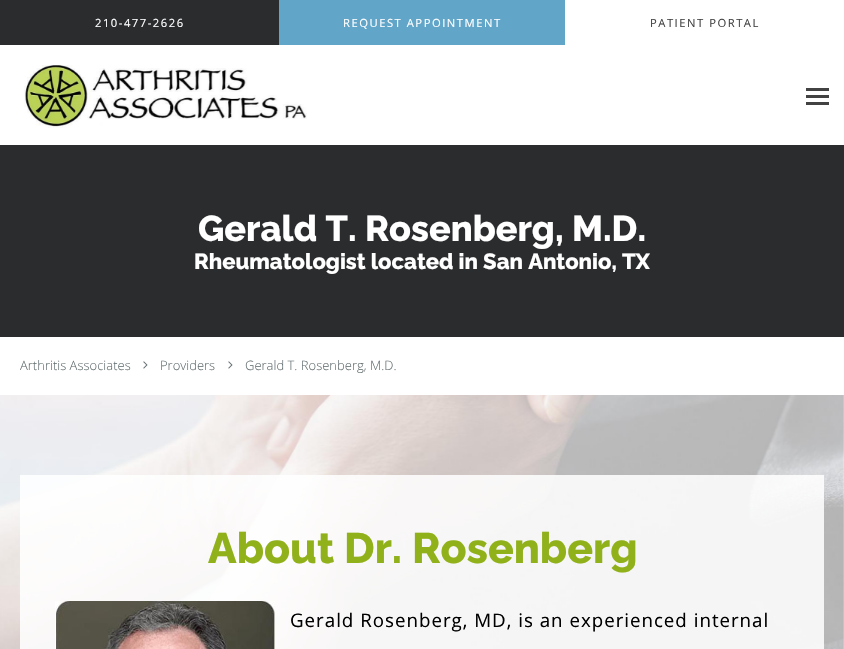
void draw(SkCanvas* canvas) {
    SkPaint paint;
    paint.setAntiAlias(true);
    auto spacedText = [&](const char* s, float x, float y, const SkFont& font, const SkPaint& ink, float letter, float word) {
        std::vector<SkGlyphID> glyphs(font.countText(s, strlen(s), SkTextEncoding::kUTF8));
        std::vector<float> xs(glyphs.size());
        font.textToGlyphs(s, strlen(s), SkTextEncoding::kUTF8, glyphs);
        font.getXPos(glyphs, xs, x);
        float extra = 0;
        for (size_t i = 0; i < glyphs.size(); i++) {
            xs[i] += extra;
            extra += letter + word * (glyphs[i] == font.unicharToGlyph(' '));
        }
        canvas->drawTextBlob(SkTextBlob::MakeFromPosHGlyphs(glyphs, xs, y, font), 0, 0, ink);
    };
    canvas->clear(0xFFFFFFFF);
    paint.setColor(0xFF2B2C2E);
    canvas->drawRect(SkRect::MakeXYWH(0, 0, 279, 45), paint);
    SkFont font1(fontMgr->matchFamilyStyle("Open Sans", SkFontStyle::Normal()), 11.25f);
    font1.setSubpixel(true);
    paint.setColor(0xFFFFFFFF);
    spacedText("210-477-2626", 95, 27, font1, paint, 1.5f, 0);
    paint.setColor(0xFF61A5C9);
    canvas->drawRect(SkRect::MakeXYWH(279, 0, 286, 45), paint);
    paint.setColor(0xFFFFFFFF);
    spacedText("REQUEST APPOINTMENT", 343, 27, font1, paint, 1.5f, 0);
    paint.setColor(0xFF424242);
    spacedText("PATIENT PORTAL", 650, 27, font1, paint, 1.5f, 0);
    canvas->drawImageRect(SkImages::DeferredFromEncodedData(SkData::MakeFromFileName("img1.png")), SkRect::MakeXYWH(24, 65, 283, 63), SkSamplingOptions());
    canvas->drawRect(SkRect::MakeXYWH(806, 88, 23, 3), paint);
    canvas->drawRect(SkRect::MakeXYWH(806, 95, 23, 3), paint);
    canvas->drawRect(SkRect::MakeXYWH(806, 102, 23, 3), paint);
    paint.setColor(0xFF2B2C2E);
    canvas->drawRect(SkRect::MakeXYWH(0, 145, 844, 192), paint);
    SkFont font2(fontMgr->matchFamilyStyle("Raleway", SkFontStyle(800, SkFontStyle::kNormal_Width, SkFontStyle::kUpright_Slant)), 36);
    font2.setSubpixel(true);
    paint.setColor(0xFFFFFFFF);
    canvas->drawString("Gerald T. Rosenberg, M.D.", 198, 241, font2, paint);
    SkFont font3(fontMgr->matchFamilyStyle("Raleway", SkFontStyle(800, SkFontStyle::kNormal_Width, SkFontStyle::kUpright_Slant)), 22);
    font3.setSubpixel(true);
    canvas->drawString("Rheumatologist located in San Antonio, TX", 194, 269, font3, paint);
    SkFont font4(fontMgr->matchFamilyStyle("Open Sans", SkFontStyle(300, SkFontStyle::kNormal_Width, SkFontStyle::kUpright_Slant)), 13);
    font4.setSubpixel(true);
    paint.setColor(0xFF656F72);
    canvas->drawString("Arthritis Associates", 20, 370, font4, paint);
    canvas->drawImageRect(SkImages::DeferredFromEncodedData(SkData::MakeFromFileName("img2.png")), SkRect::MakeXYWH(143, 361, 5, 8), SkSamplingOptions());
    canvas->drawString("Providers", 160, 370, font4, paint);
    canvas->drawImageRect(SkImages::DeferredFromEncodedData(SkData::MakeFromFileName("img2.png")), SkRect::MakeXYWH(228, 361, 5, 8), SkSamplingOptions());
    canvas->drawString("Gerald T. Rosenberg, M.D.", 245, 370, font4, paint);
    canvas->drawImageRect(SkImages::DeferredFromEncodedData(SkData::MakeFromFileName("img3.png")), SkRect::MakeXYWH(0, 395, 844, 254), SkSamplingOptions());
    paint.setColor(0xDBFFFFFF);
    canvas->drawRect(SkRect::MakeXYWH(20, 475, 804, 174), paint);
    SkFont font5(fontMgr->matchFamilyStyle("Raleway", SkFontStyle(800, SkFontStyle::kNormal_Width, SkFontStyle::kUpright_Slant)), 42.75f);
    font5.setSubpixel(true);
    paint.setColor(0xFF91B11B);
    canvas->drawString("About Dr. Rosenberg", 208, 563, font5, paint);
    canvas->drawImageRect(SkImages::DeferredFromEncodedData(SkData::MakeFromFileName("img4.png")), SkRect::MakeXYWH(55, 601, 220, 48), SkSamplingOptions());
    SkFont font6(fontMgr->matchFamilyStyle("Open Sans", SkFontStyle::Normal()), 18.7f);
    font6.setSubpixel(true);
    paint.setColor(0xFF000000);
    spacedText("Gerald Rosenberg, MD, is an experienced internal", 290, 627, font6, paint, 1, 0);
}
